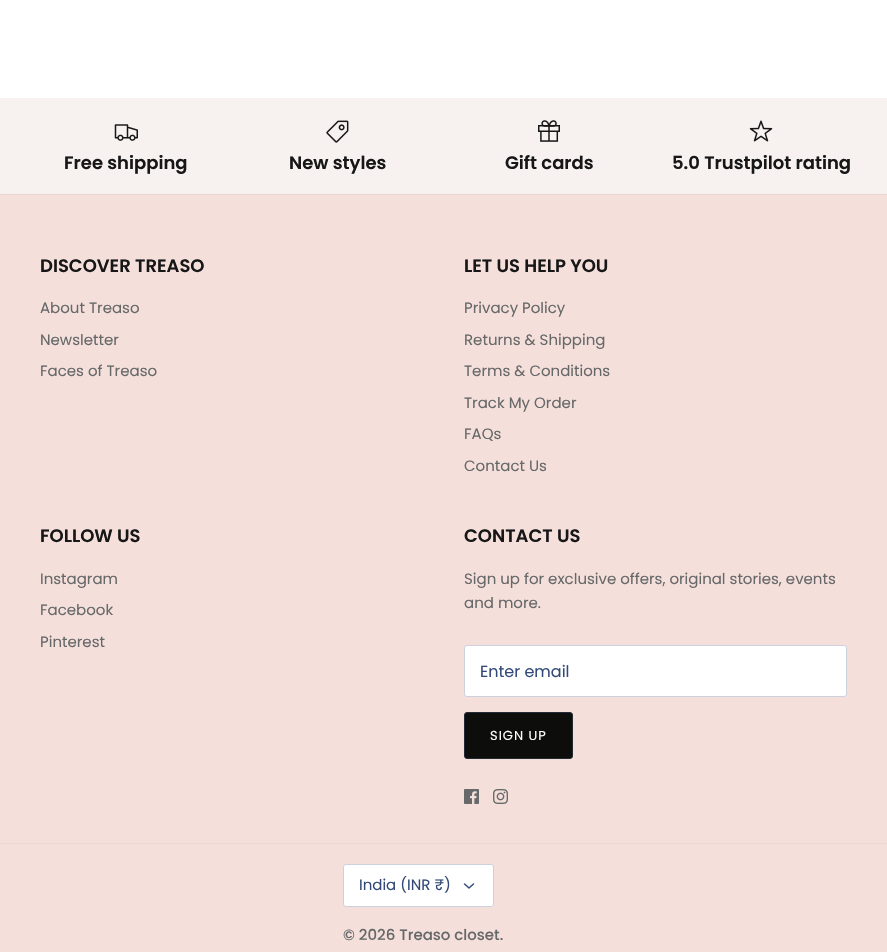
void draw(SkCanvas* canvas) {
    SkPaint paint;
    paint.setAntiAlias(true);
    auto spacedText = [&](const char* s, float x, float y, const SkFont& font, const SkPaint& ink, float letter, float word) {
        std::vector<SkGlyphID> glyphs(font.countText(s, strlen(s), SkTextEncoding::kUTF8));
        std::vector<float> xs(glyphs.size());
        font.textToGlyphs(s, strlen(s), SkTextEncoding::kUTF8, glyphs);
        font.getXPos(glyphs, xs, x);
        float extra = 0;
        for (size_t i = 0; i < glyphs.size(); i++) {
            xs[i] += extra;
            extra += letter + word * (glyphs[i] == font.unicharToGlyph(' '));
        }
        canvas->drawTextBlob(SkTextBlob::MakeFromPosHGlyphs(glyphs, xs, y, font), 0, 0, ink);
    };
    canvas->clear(0xFFFFFFFF);
    paint.setColor(0xFFF4DFDB);
    canvas->drawRect(SkRect::MakeXYWH(0, 195, 887, 757), paint);
    paint.setColor(0xFFF7F1F0);
    canvas->drawRect(SkRect::MakeXYWH(0, 98, 887, 96), paint);
    canvas->drawImageRect(SkImages::DeferredFromEncodedData(SkData::MakeFromFileName("img1.png")), SkRect::MakeXYWH(114, 124, 24, 17), SkSamplingOptions());
    SkFont font1(fontMgr->matchFamilyStyle("Poppins", SkFontStyle(600, SkFontStyle::kNormal_Width, SkFontStyle::kUpright_Slant)), 18);
    font1.setSubpixel(true);
    paint.setColor(0xFF171717);
    canvas->drawString("Free shipping", 64, 169, font1, paint);
    canvas->drawImageRect(SkImages::DeferredFromEncodedData(SkData::MakeFromFileName("img2.png")), SkRect::MakeXYWH(326, 120, 23, 23), SkSamplingOptions());
    canvas->drawString("New styles", 289, 169, font1, paint);
    canvas->drawImageRect(SkImages::DeferredFromEncodedData(SkData::MakeFromFileName("img3.png")), SkRect::MakeXYWH(538, 120, 22, 22), SkSamplingOptions());
    canvas->drawString("Gift cards", 505, 169, font1, paint);
    canvas->drawImageRect(SkImages::DeferredFromEncodedData(SkData::MakeFromFileName("img4.png")), SkRect::MakeXYWH(749, 120, 24, 22), SkSamplingOptions());
    canvas->drawString("5.0 Trustpilot rating", 672, 169, font1, paint);
    paint.setColor(0xFFECD6D1);
    canvas->drawRect(SkRect::MakeXYWH(0, 194, 887, 1), paint);
    paint.setColor(0xFF171717);
    canvas->drawString("DISCOVER TREASO", 40, 272, font1, paint);
    SkFont font2(fontMgr->matchFamilyStyle("Poppins", SkFontStyle::Normal()), 15);
    font2.setSubpixel(true);
    paint.setColor(0xFF676869);
    canvas->drawString("About Treaso", 40, 313, font2, paint);
    canvas->drawString("Newsletter", 40, 345, font2, paint);
    canvas->drawString("Faces of Treaso", 40, 376, font2, paint);
    paint.setColor(0xFF171717);
    canvas->drawString("LET US HELP YOU", 464, 272, font1, paint);
    paint.setColor(0xFF676869);
    canvas->drawString("Privacy Policy", 464, 313, font2, paint);
    canvas->drawString("Returns & Shipping", 464, 345, font2, paint);
    canvas->drawString("Terms & Conditions", 464, 376, font2, paint);
    canvas->drawString("Track My Order", 464, 408, font2, paint);
    canvas->drawString("FAQs", 464, 439, font2, paint);
    canvas->drawString("Contact Us", 464, 471, font2, paint);
    paint.setColor(0xFF171717);
    canvas->drawString("FOLLOW US", 40, 542, font1, paint);
    paint.setColor(0xFF676869);
    canvas->drawString("Instagram", 40, 584, font2, paint);
    canvas->drawString("Facebook", 40, 615, font2, paint);
    canvas->drawString("Pinterest", 40, 647, font2, paint);
    paint.setColor(0xFF171717);
    canvas->drawString("CONTACT US", 464, 542, font1, paint);
    paint.setColor(0xFF676869);
    canvas->drawString("Sign up for exclusive offers, original stories, events", 464, 584, font2, paint);
    canvas->drawString("and more.", 464, 608, font2, paint);
    paint.setColor(0xFFFFFFFF);
    canvas->drawRoundRect(SkRect::MakeXYWH(464.5f, 645.5f, 382, 51), 2.5f, 2.5f, paint);
    paint.setStyle(SkPaint::kStroke_Style);
    paint.setStrokeWidth(1);
    paint.setColor(0xFFCCD2DD);
    canvas->drawRoundRect(SkRect::MakeXYWH(464.5f, 645.5f, 382, 51), 2.5f, 2.5f, paint);
    SkFont font3(fontMgr->matchFamilyStyle("Poppins", SkFontStyle::Normal()), 16);
    font3.setSubpixel(true);
    paint.setStyle(SkPaint::kFill_Style);
    paint.setColor(0xFF334A78);
    canvas->drawString("Enter email", 480, 677, font3, paint);
    paint.setColor(0xFF0D0D0C);
    canvas->drawRoundRect(SkRect::MakeXYWH(464.5f, 712.5f, 108, 46), 2.5f, 2.5f, paint);
    paint.setStyle(SkPaint::kStroke_Style);
    paint.setColor(0xFF212B36);
    canvas->drawRoundRect(SkRect::MakeXYWH(464.5f, 712.5f, 108, 46), 2.5f, 2.5f, paint);
    SkFont font4(fontMgr->matchFamilyStyle("Poppins", SkFontStyle::Normal()), 13);
    font4.setSubpixel(true);
    paint.setStyle(SkPaint::kFill_Style);
    paint.setColor(0xFFFFFFFF);
    spacedText("SIGN UP", 490, 740, font4, paint, 1, 0);
    canvas->drawImageRect(SkImages::DeferredFromEncodedData(SkData::MakeFromFileName("img5.png")), SkRect::MakeXYWH(464, 789, 15, 15), SkSamplingOptions());
    canvas->drawImageRect(SkImages::DeferredFromEncodedData(SkData::MakeFromFileName("img6.png")), SkRect::MakeXYWH(493, 789, 15, 15), SkSamplingOptions());
    paint.setColor(0xFFECD6D1);
    canvas->drawRect(SkRect::MakeXYWH(0, 843, 887, 1), paint);
    paint.setColor(0xFFFFFFFF);
    canvas->drawRoundRect(SkRect::MakeXYWH(343.5f, 864.5f, 150, 42), 2.5f, 2.5f, paint);
    paint.setStyle(SkPaint::kStroke_Style);
    paint.setColor(0xFFCCD2DD);
    canvas->drawRoundRect(SkRect::MakeXYWH(343.5f, 864.5f, 150, 42), 2.5f, 2.5f, paint);
    paint.setStyle(SkPaint::kFill_Style);
    paint.setColor(0xFF334A78);
    canvas->drawString("India (INR ₹)", 359, 890, font2, paint);
    paint.setStyle(SkPaint::kStroke_Style);
    paint.setStrokeWidth(1.5f);
    paint.setStrokeCap(SkPaint::kRound_Cap);
    paint.setStrokeJoin(SkPaint::kRound_Join);
    canvas->drawPath(SkPathBuilder().moveTo(464.5f, 884).lineTo(469, 888).lineTo(473.5f, 884).detach(), paint);
    SkFont font5(fontMgr->matchFamilyStyle("Poppins", SkFontStyle(500, SkFontStyle::kNormal_Width, SkFontStyle::kUpright_Slant)), 15);
    font5.setSubpixel(true);
    paint.setStyle(SkPaint::kFill_Style);
    paint.setColor(0xFF676869);
    canvas->drawString("© 2026 Treaso closet.", 343, 940, font5, paint);
}
